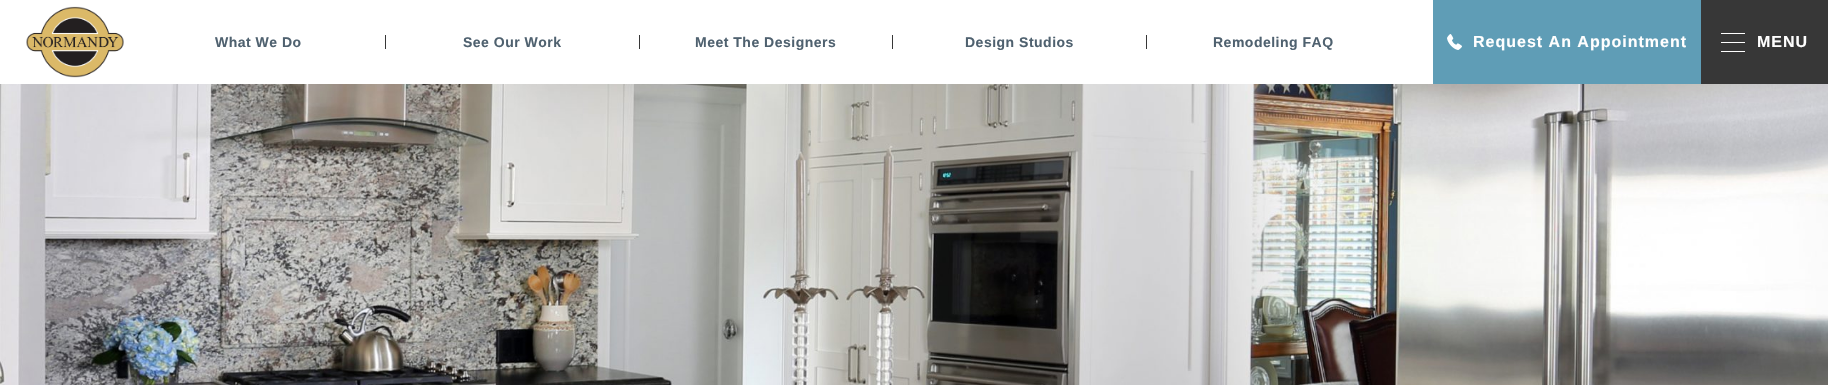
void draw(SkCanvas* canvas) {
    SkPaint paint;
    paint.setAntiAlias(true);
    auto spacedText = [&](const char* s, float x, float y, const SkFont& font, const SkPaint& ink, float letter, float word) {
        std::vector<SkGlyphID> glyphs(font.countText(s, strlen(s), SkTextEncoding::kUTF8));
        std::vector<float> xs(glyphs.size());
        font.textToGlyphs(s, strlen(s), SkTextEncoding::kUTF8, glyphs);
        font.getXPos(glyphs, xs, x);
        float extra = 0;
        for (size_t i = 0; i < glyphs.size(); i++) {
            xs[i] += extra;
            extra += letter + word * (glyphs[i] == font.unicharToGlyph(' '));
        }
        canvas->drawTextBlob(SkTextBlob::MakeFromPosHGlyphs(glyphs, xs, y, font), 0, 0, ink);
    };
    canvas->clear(0xFFFFFFFF);
    canvas->drawImageRect(SkImages::DeferredFromEncodedData(SkData::MakeFromFileName("img1.png")), SkRect::MakeXYWH(26, 6, 98, 72), SkSamplingOptions());
    paint.setColor(0xFF373737);
    canvas->drawRect(SkRect::MakeXYWH(385, 35, 1, 14), paint);
    SkFont font1(fontMgr->matchFamilyStyle("Liberation Sans", SkFontStyle::Bold()), 14);
    font1.setSubpixel(true);
    paint.setColor(0xFF4F616F);
    spacedText("What We Do", 215, 47, font1, paint, 0.5f, 0);
    paint.setColor(0xFF373737);
    canvas->drawRect(SkRect::MakeXYWH(639, 35, 1, 14), paint);
    paint.setColor(0xFF4F616F);
    spacedText("See Our Work", 463, 47, font1, paint, 0.5f, 0);
    paint.setColor(0xFF373737);
    canvas->drawRect(SkRect::MakeXYWH(892, 35, 1, 14), paint);
    paint.setColor(0xFF4F616F);
    spacedText("Meet The Designers", 695, 47, font1, paint, 0.5f, 0);
    paint.setColor(0xFF373737);
    canvas->drawRect(SkRect::MakeXYWH(1146, 35, 1, 14), paint);
    paint.setColor(0xFF4F616F);
    spacedText("Design Studios", 965, 47, font1, paint, 0.5f, 0);
    spacedText("Remodeling FAQ", 1213, 47, font1, paint, 0.5f, 0);
    paint.setColor(0xFF5F9DB6);
    canvas->drawRect(SkRect::MakeXYWH(1433, 0, 268, 84), paint);
    canvas->drawImageRect(SkImages::DeferredFromEncodedData(SkData::MakeFromFileName("img2.png")), SkRect::MakeXYWH(1447, 34, 15, 16), SkSamplingOptions());
    SkFont font2(fontMgr->matchFamilyStyle("Liberation Sans", SkFontStyle::Bold()), 16);
    font2.setSubpixel(true);
    paint.setColor(0xFFFFFFFF);
    spacedText("Request An Appointment", 1473, 47, font2, paint, 1, 0);
    paint.setColor(0xFF373737);
    canvas->drawRect(SkRect::MakeXYWH(1701, 0, 127, 84), paint);
    paint.setColor(0xFFFFFFFF);
    canvas->drawRect(SkRect::MakeXYWH(1721, 33, 24, 1), paint);
    canvas->drawRect(SkRect::MakeXYWH(1721, 42, 24, 1), paint);
    canvas->drawRect(SkRect::MakeXYWH(1721, 51, 24, 1), paint);
    spacedText("MENU", 1757, 47, font2, paint, 1, 0);
    canvas->drawImageRect(SkImages::DeferredFromEncodedData(SkData::MakeFromFileName("img3.png")), SkRect::MakeXYWH(0, 84, 1828, 301), SkSamplingOptions());
}
